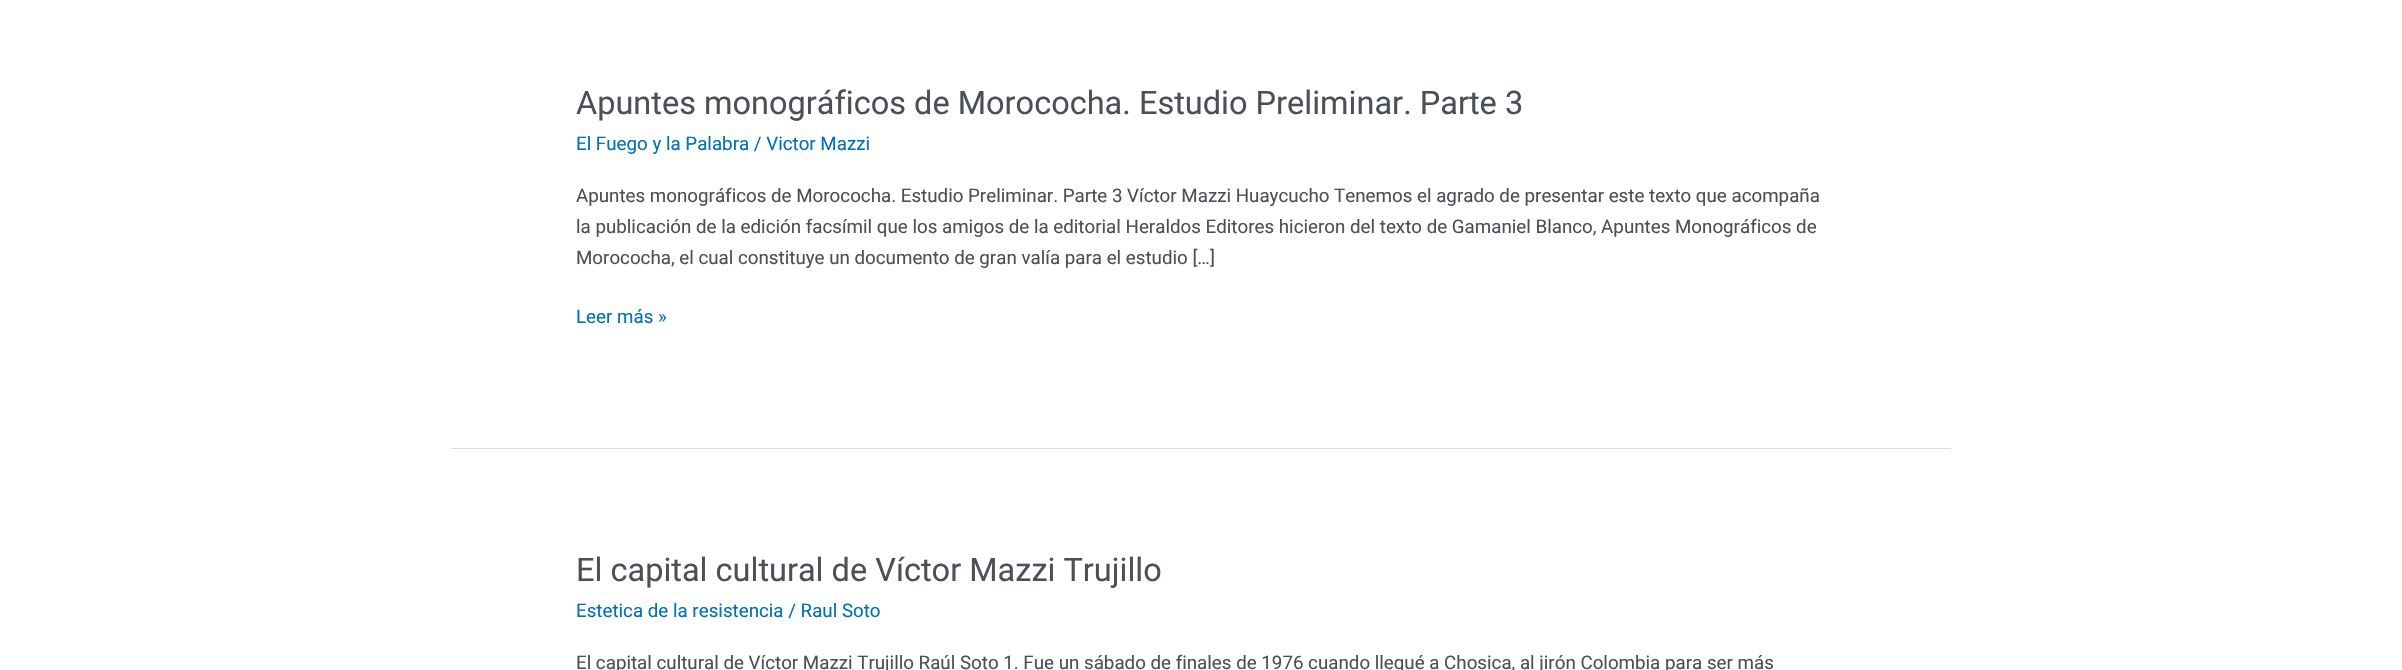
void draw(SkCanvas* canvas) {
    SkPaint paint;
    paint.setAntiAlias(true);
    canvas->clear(0xFFFFFFFF);
    paint.setColor(0xFFDDDDDD);
    canvas->drawRect(SkRect::MakeXYWH(451, 448, 1500, 1), paint);
    SkFont font1(fontMgr->matchFamilyStyle("Roboto", SkFontStyle::Normal()), 32.5f);
    font1.setSubpixel(true);
    paint.setColor(0xFF4B4F58);
    canvas->drawString("Apuntes monográficos de Morococha. Estudio Preliminar. Parte 3", 576, 114, font1, paint);
    SkFont font2(fontMgr->matchFamilyStyle("Roboto", SkFontStyle::Normal()), 18.75f);
    font2.setSubpixel(true);
    paint.setColor(0xFF0170B9);
    canvas->drawString("El Fuego y la Palabra / Victor Mazzi", 576, 150, font2, paint);
    paint.setColor(0xFF4B4F58);
    canvas->drawString("Apuntes monográficos de Morococha. Estudio Preliminar. Parte 3 Víctor Mazzi Huaycucho Tenemos el agrado de presentar este texto que acompaña", 576, 202, font2, paint);
    canvas->drawString("la publicación de la edición facsímil que los amigos de la editorial Heraldos Editores hicieron del texto de Gamaniel Blanco, Apuntes Monográficos de", 576, 233, font2, paint);
    canvas->drawString("Morococha, el cual constituye un documento de gran valía para el estudio […]", 576, 264, font2, paint);
    paint.setColor(0xFF0170B9);
    canvas->drawString("Leer más »", 576, 323, font2, paint);
    paint.setColor(0xFF4B4F58);
    canvas->drawString("El capital cultural de Víctor Mazzi Trujillo", 576, 581, font1, paint);
    paint.setColor(0xFF0170B9);
    canvas->drawString("Estetica de la resistencia / Raul Soto", 576, 617, font2, paint);
    paint.setColor(0xFF4B4F58);
    canvas->drawString("El capital cultural de Víctor Mazzi Trujillo Raúl Soto 1. Fue un sábado de finales de 1976 cuando llegué a Chosica, al jirón Colombia para ser más", 576, 669, font2, paint);
}
